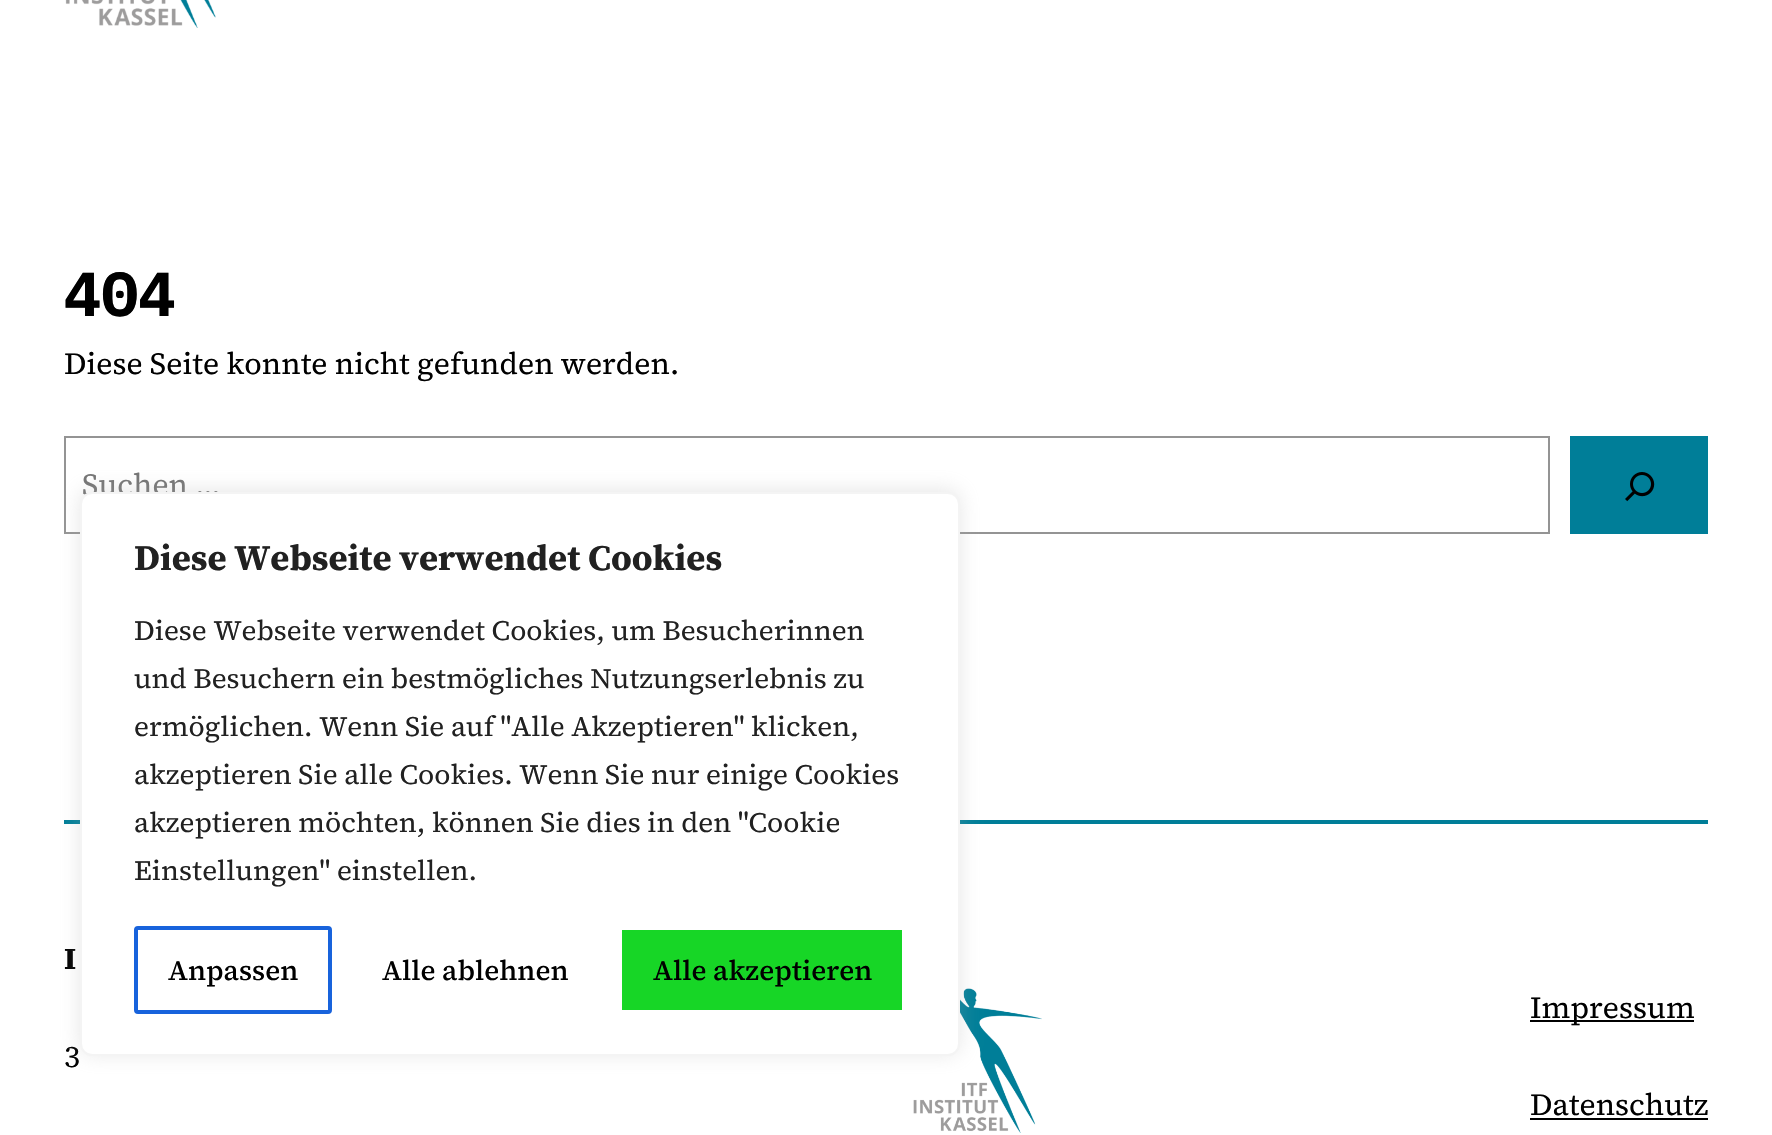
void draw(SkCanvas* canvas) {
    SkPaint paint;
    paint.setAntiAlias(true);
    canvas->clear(0xFFFFFFFF);
    canvas->drawImageRect(SkImages::DeferredFromEncodedData(SkData::MakeFromFileName("img1.png")), SkRect::MakeXYWH(65, 0, 151, 28), SkSamplingOptions());
    SkFont font1(fontMgr->matchFamilyStyle("IBM Plex Mono", SkFontStyle::Bold()), 62);
    font1.setSubpixel(true);
    paint.setColor(0xFF000000);
    canvas->drawString("404", 64, 316, font1, paint);
    SkFont font2(fontMgr->matchFamilyStyle("Source Serif 4", SkFontStyle::Normal()), 30.6f);
    font2.setSubpixel(true);
    canvas->drawString("Diese Seite konnte nicht gefunden werden.", 64, 374, font2, paint);
    paint.setStyle(SkPaint::kStroke_Style);
    paint.setStrokeWidth(2);
    paint.setColor(0xFF949494);
    canvas->drawRect(SkRect::MakeXYWH(65, 437, 1484, 96), paint);
    paint.setStyle(SkPaint::kFill_Style);
    paint.setColor(0xFF757575);
    canvas->drawString("Suchen …", 82, 495, font2, paint);
    paint.setColor(0xFF007E98);
    canvas->drawRect(SkRect::MakeXYWH(1570, 436, 138, 98), paint);
    canvas->drawImageRect(SkImages::DeferredFromEncodedData(SkData::MakeFromFileName("img2.png")), SkRect::MakeXYWH(1625, 472, 30, 30), SkSamplingOptions());
    canvas->drawRect(SkRect::MakeXYWH(64, 820, 1644, 4), paint);
    SkFont font3(fontMgr->matchFamilyStyle("Source Serif 4", SkFontStyle::Bold()), 30.6f);
    font3.setSubpixel(true);
    paint.setColor(0xFF000000);
    canvas->drawString("I", 64, 969, font3, paint);
    canvas->drawString("3", 64, 1067, font2, paint);
    canvas->drawImageRect(SkImages::DeferredFromEncodedData(SkData::MakeFromFileName("img3.png")), SkRect::MakeXYWH(913, 988, 129, 145), SkSamplingOptions());
    canvas->drawRect(SkRect::MakeXYWH(1530, 1020, 164, 2), paint);
    canvas->drawString("Impressum", 1530, 1018, font2, paint);
    canvas->drawString("Datenschutz", 1530, 1115, font2, paint);
    canvas->drawRect(SkRect::MakeXYWH(1530, 1118, 178, 2), paint);
    paint.setColor(0x4DACABAB);
    paint.setMaskFilter(SkMaskFilter::MakeBlur(kNormal_SkBlurStyle, 10));
    canvas->drawRoundRect(SkRect::MakeXYWH(80, 490, 880, 564), 12, 12, paint);
    paint.setMaskFilter(nullptr);
    paint.setColor(0xFFFFFFFF);
    canvas->drawRoundRect(SkRect::MakeXYWH(81, 493, 878, 562), 11, 11, paint);
    paint.setStyle(SkPaint::kStroke_Style);
    paint.setColor(0xFFF4F4F4);
    canvas->drawRoundRect(SkRect::MakeXYWH(81, 493, 878, 562), 11, 11, paint);
    SkFont font4(fontMgr->matchFamilyStyle("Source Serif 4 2", SkFontStyle::Bold()), 36);
    font4.setSubpixel(true);
    paint.setStyle(SkPaint::kFill_Style);
    paint.setColor(0xFF212121);
    canvas->drawString("Diese Webseite verwendet Cookies", 134, 570, font4, paint);
    SkFont font5(fontMgr->matchFamilyStyle("Source Serif 4 2", SkFontStyle::Normal()), 28);
    font5.setSubpixel(true);
    canvas->drawString("Diese Webseite verwendet Cookies, um Besucherinnen", 134, 640, font5, paint);
    canvas->drawString("und Besuchern ein bestmögliches Nutzungserlebnis zu", 134, 688, font5, paint);
    canvas->drawString("ermöglichen. Wenn Sie auf \"Alle Akzeptieren\" klicken,", 134, 736, font5, paint);
    canvas->drawString("akzeptieren Sie alle Cookies. Wenn Sie nur einige Cookies", 134, 784, font5, paint);
    canvas->drawString("akzeptieren möchten, können Sie dies in den \"Cookie", 134, 832, font5, paint);
    canvas->drawString("Einstellungen\" einstellen.", 134, 880, font5, paint);
    paint.setStyle(SkPaint::kStroke_Style);
    paint.setStrokeWidth(4);
    paint.setColor(0xFF1863DC);
    canvas->drawRoundRect(SkRect::MakeXYWH(136, 928, 194, 84), 2, 2, paint);
    SkFont font6(fontMgr->matchFamilyStyle("Source Serif 4", SkFontStyle(500, SkFontStyle::kNormal_Width, SkFontStyle::kUpright_Slant)), 28);
    font6.setSubpixel(true);
    paint.setStyle(SkPaint::kFill_Style);
    paint.setColor(0xFF000000);
    canvas->drawString("Anpassen", 168, 980, font6, paint);
    canvas->drawString("Alle ablehnen", 382, 980, font6, paint);
    paint.setColor(0xFF17D626);
    canvas->drawRoundRect(SkRect::MakeXYWH(620, 928, 284, 84), 2, 2, paint);
    paint.setStyle(SkPaint::kStroke_Style);
    paint.setColor(0xFFFFFFFF);
    canvas->drawRoundRect(SkRect::MakeXYWH(620, 928, 284, 84), 2, 2, paint);
    paint.setStyle(SkPaint::kFill_Style);
    paint.setColor(0xFF000000);
    canvas->drawString("Alle akzeptieren", 653, 980, font6, paint);
}
